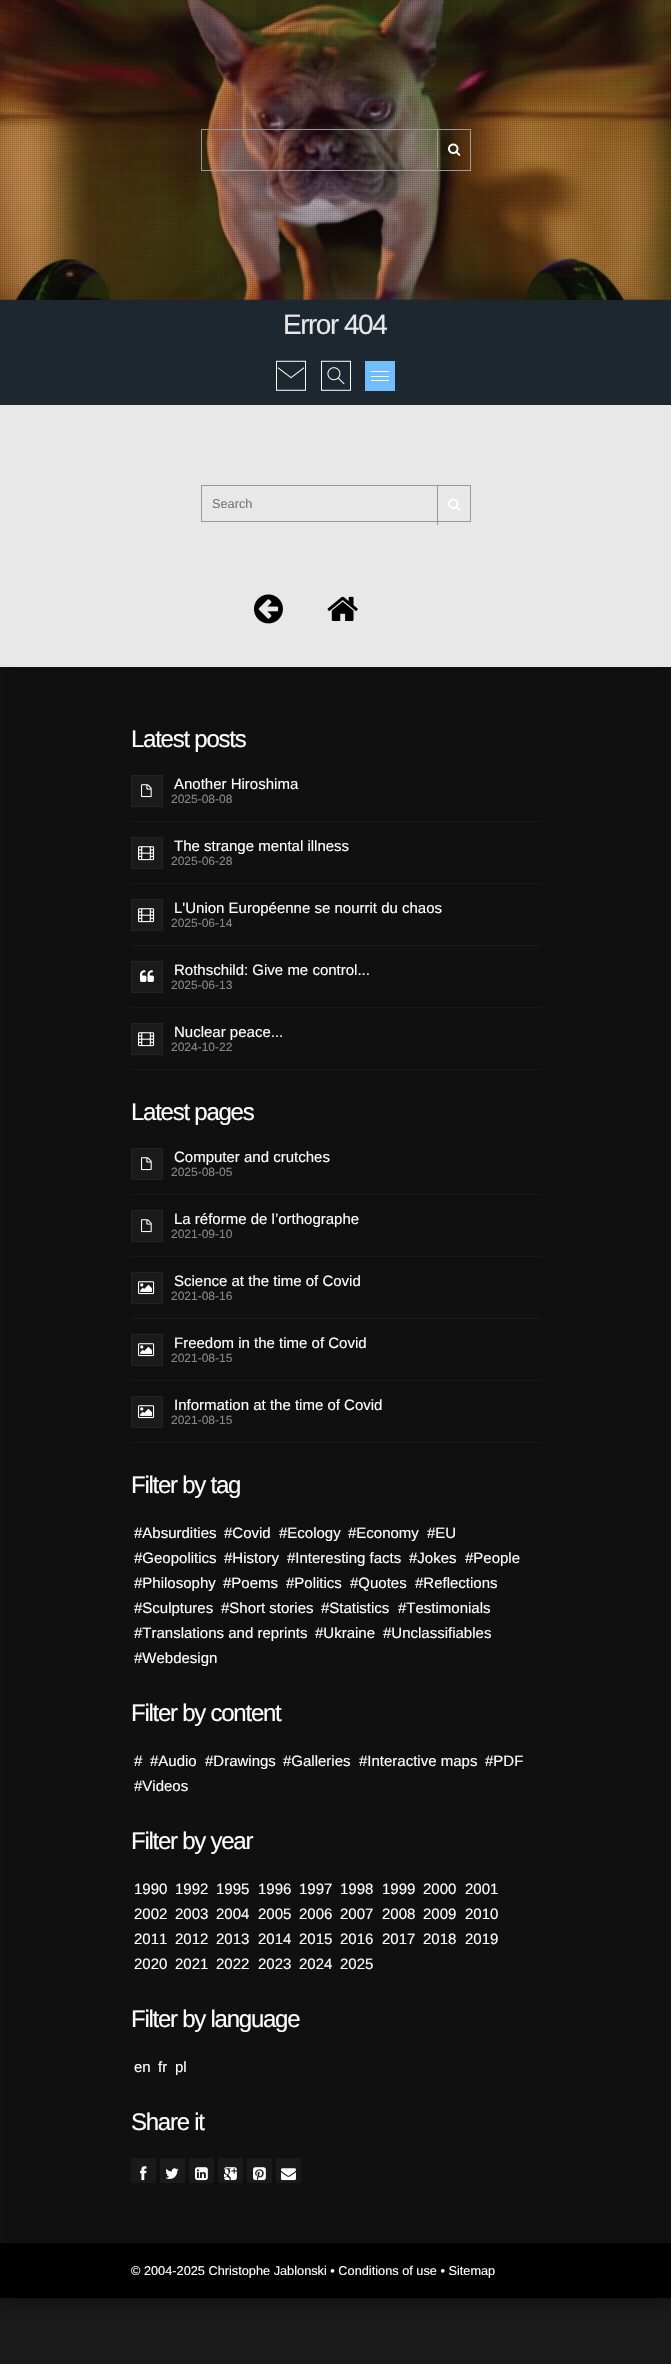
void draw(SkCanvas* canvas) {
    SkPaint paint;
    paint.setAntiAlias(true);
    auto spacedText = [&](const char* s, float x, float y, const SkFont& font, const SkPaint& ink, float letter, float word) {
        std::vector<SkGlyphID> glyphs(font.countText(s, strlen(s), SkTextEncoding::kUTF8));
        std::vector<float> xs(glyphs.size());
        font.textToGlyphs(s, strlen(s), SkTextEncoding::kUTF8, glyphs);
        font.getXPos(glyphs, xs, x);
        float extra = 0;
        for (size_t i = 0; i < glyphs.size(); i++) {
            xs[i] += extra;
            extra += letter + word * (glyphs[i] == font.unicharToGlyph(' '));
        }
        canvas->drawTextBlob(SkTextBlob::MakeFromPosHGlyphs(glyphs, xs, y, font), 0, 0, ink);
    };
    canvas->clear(0xFF1A1A1A);
    paint.setColor(0x80000000);
    paint.setMaskFilter(SkMaskFilter::MakeBlur(kNormal_SkBlurStyle, 10));
    canvas->drawRect(SkRect::MakeXYWH(-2, -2, 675, 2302), paint);
    paint.setMaskFilter(nullptr);
    canvas->drawImageRect(SkImages::DeferredFromEncodedData(SkData::MakeFromFileName("img1.png")), SkRect::MakeXYWH(0, 0, 671, 300), SkSamplingOptions());
    canvas->drawImageRect(SkImages::DeferredFromEncodedData(SkData::MakeFromFileName("img2.png")), SkRect::MakeXYWH(0, 0, 671, 299), SkSamplingOptions());
    paint.setStyle(SkPaint::kStroke_Style);
    paint.setStrokeWidth(1);
    paint.setColor(0xFF999999);
    canvas->drawRect(SkRect::MakeXYWH(201.5f, 129.5f, 269, 41), paint);
    paint.setStyle(SkPaint::kFill_Style);
    canvas->drawRect(SkRect::MakeXYWH(437, 129, 1, 40), paint);
    canvas->drawImageRect(SkImages::DeferredFromEncodedData(SkData::MakeFromFileName("img3.png")), SkRect::MakeXYWH(448, 143, 13, 13), SkSamplingOptions());
    paint.setColor(0xFFE8E8E8);
    canvas->drawRect(SkRect::MakeXYWH(0, 405, 671, 262), paint);
    paint.setColor(0xFF1C2730);
    canvas->drawRect(SkRect::MakeXYWH(0, 300, 671, 105), paint);
    SkFont font1(fontMgr->matchFamilyStyle("Liberation Sans", SkFontStyle::Normal()), 28);
    font1.setSubpixel(true);
    paint.setColor(0xFFE8E8E8);
    spacedText("Error 404", 283, 334, font1, paint, -1.5f, 0);
    canvas->drawImageRect(SkImages::DeferredFromEncodedData(SkData::MakeFromFileName("img4.png")), SkRect::MakeXYWH(276, 360, 30, 31), SkSamplingOptions());
    canvas->drawImageRect(SkImages::DeferredFromEncodedData(SkData::MakeFromFileName("img5.png")), SkRect::MakeXYWH(321, 360, 30, 31), SkSamplingOptions());
    paint.setColor(0xFF72BDFF);
    canvas->drawRect(SkRect::MakeXYWH(365, 361, 30, 30), paint);
    paint.setColor(0xFFFFFFFF);
    canvas->drawRect(SkRect::MakeXYWH(371, 371, 18, 1), paint);
    canvas->drawRect(SkRect::MakeXYWH(371, 376, 18, 1), paint);
    canvas->drawRect(SkRect::MakeXYWH(371, 380, 18, 1), paint);
    paint.setStyle(SkPaint::kStroke_Style);
    paint.setColor(0xFF999999);
    canvas->drawRect(SkRect::MakeXYWH(201.5f, 485.5f, 269, 36), paint);
    SkFont font2(fontMgr->matchFamilyStyle("Liberation Sans", SkFontStyle::Normal()), 12.75f);
    font2.setSubpixel(true);
    paint.setStyle(SkPaint::kFill_Style);
    paint.setColor(0xFF757575);
    canvas->drawString("Search", 212, 508, font2, paint);
    paint.setColor(0xFF999999);
    canvas->drawRect(SkRect::MakeXYWH(437, 485, 1, 40), paint);
    canvas->drawImageRect(SkImages::DeferredFromEncodedData(SkData::MakeFromFileName("img6.png")), SkRect::MakeXYWH(448, 498, 13, 13), SkSamplingOptions());
    canvas->drawImageRect(SkImages::DeferredFromEncodedData(SkData::MakeFromFileName("img7.png")), SkRect::MakeXYWH(254, 594, 29, 30), SkSamplingOptions());
    canvas->drawImageRect(SkImages::DeferredFromEncodedData(SkData::MakeFromFileName("img8.png")), SkRect::MakeXYWH(327, 596, 31, 25), SkSamplingOptions());
    paint.setColor(0xFF111010);
    canvas->drawRect(SkRect::MakeXYWH(10, 667, 651, 1576), paint);
    SkFont font3(fontMgr->matchFamilyStyle("Liberation Sans", SkFontStyle::Normal()), 24);
    font3.setSubpixel(true);
    paint.setColor(0xFFFFFFFF);
    spacedText("Latest posts", 131, 747, font3, paint, -1.25f, 0);
    paint.setColor(0xFF1B1A1A);
    canvas->drawRect(SkRect::MakeXYWH(131, 821, 410, 1), paint);
    canvas->drawRect(SkRect::MakeXYWH(131.5f, 775.5f, 31, 31), paint);
    paint.setStyle(SkPaint::kStroke_Style);
    paint.setColor(0xFF242323);
    canvas->drawRect(SkRect::MakeXYWH(131.5f, 775.5f, 31, 31), paint);
    canvas->drawImageRect(SkImages::DeferredFromEncodedData(SkData::MakeFromFileName("img9.png")), SkRect::MakeXYWH(141, 784, 11, 14), SkSamplingOptions());
    SkFont font4(fontMgr->matchFamilyStyle("Liberation Sans", SkFontStyle::Normal()), 15);
    font4.setSubpixel(true);
    paint.setStyle(SkPaint::kFill_Style);
    paint.setColor(0xFFFFFFFF);
    canvas->drawString("Another Hiroshima", 174, 789, font4, paint);
    SkFont font5(fontMgr->matchFamilyStyle("Liberation Sans", SkFontStyle::Normal()), 12);
    font5.setSubpixel(true);
    paint.setColor(0xFF888888);
    canvas->drawString("2025-08-08", 171, 803, font5, paint);
    paint.setColor(0xFF1B1A1A);
    canvas->drawRect(SkRect::MakeXYWH(131, 883, 410, 1), paint);
    canvas->drawRect(SkRect::MakeXYWH(131.5f, 837.5f, 31, 31), paint);
    paint.setStyle(SkPaint::kStroke_Style);
    paint.setColor(0xFF242323);
    canvas->drawRect(SkRect::MakeXYWH(131.5f, 837.5f, 31, 31), paint);
    canvas->drawImageRect(SkImages::DeferredFromEncodedData(SkData::MakeFromFileName("img10.png")), SkRect::MakeXYWH(138, 846, 17, 15), SkSamplingOptions());
    paint.setStyle(SkPaint::kFill_Style);
    paint.setColor(0xFFFFFFFF);
    canvas->drawString("The strange mental illness", 174, 851, font4, paint);
    paint.setColor(0xFF888888);
    canvas->drawString("2025-06-28", 171, 865, font5, paint);
    paint.setColor(0xFF1B1A1A);
    canvas->drawRect(SkRect::MakeXYWH(131, 945, 410, 1), paint);
    canvas->drawRect(SkRect::MakeXYWH(131.5f, 899.5f, 31, 31), paint);
    paint.setStyle(SkPaint::kStroke_Style);
    paint.setColor(0xFF242323);
    canvas->drawRect(SkRect::MakeXYWH(131.5f, 899.5f, 31, 31), paint);
    canvas->drawImageRect(SkImages::DeferredFromEncodedData(SkData::MakeFromFileName("img10.png")), SkRect::MakeXYWH(138, 908, 17, 15), SkSamplingOptions());
    paint.setStyle(SkPaint::kFill_Style);
    paint.setColor(0xFFFFFFFF);
    canvas->drawString("L'Union Européenne se nourrit du chaos", 174, 913, font4, paint);
    paint.setColor(0xFF888888);
    canvas->drawString("2025-06-14", 171, 927, font5, paint);
    paint.setColor(0xFF1B1A1A);
    canvas->drawRect(SkRect::MakeXYWH(131, 1007, 410, 1), paint);
    canvas->drawRect(SkRect::MakeXYWH(131.5f, 961.5f, 31, 31), paint);
    paint.setStyle(SkPaint::kStroke_Style);
    paint.setColor(0xFF242323);
    canvas->drawRect(SkRect::MakeXYWH(131.5f, 961.5f, 31, 31), paint);
    canvas->drawImageRect(SkImages::DeferredFromEncodedData(SkData::MakeFromFileName("img11.png")), SkRect::MakeXYWH(140, 970, 14, 12), SkSamplingOptions());
    paint.setStyle(SkPaint::kFill_Style);
    paint.setColor(0xFFFFFFFF);
    canvas->drawString("Rothschild: Give me control...", 174, 975, font4, paint);
    paint.setColor(0xFF888888);
    canvas->drawString("2025-06-13", 171, 989, font5, paint);
    paint.setColor(0xFF1B1A1A);
    canvas->drawRect(SkRect::MakeXYWH(131, 1069, 410, 1), paint);
    canvas->drawRect(SkRect::MakeXYWH(131.5f, 1023.5f, 31, 31), paint);
    paint.setStyle(SkPaint::kStroke_Style);
    paint.setColor(0xFF242323);
    canvas->drawRect(SkRect::MakeXYWH(131.5f, 1023.5f, 31, 31), paint);
    canvas->drawImageRect(SkImages::DeferredFromEncodedData(SkData::MakeFromFileName("img10.png")), SkRect::MakeXYWH(138, 1032, 17, 15), SkSamplingOptions());
    paint.setStyle(SkPaint::kFill_Style);
    paint.setColor(0xFFFFFFFF);
    canvas->drawString("Nuclear peace...", 174, 1037, font4, paint);
    paint.setColor(0xFF888888);
    canvas->drawString("2024-10-22", 171, 1051, font5, paint);
    paint.setColor(0xFFFFFFFF);
    spacedText("Latest pages", 131, 1120, font3, paint, -1.25f, 0);
    paint.setColor(0xFF1B1A1A);
    canvas->drawRect(SkRect::MakeXYWH(131, 1194, 410, 1), paint);
    canvas->drawRect(SkRect::MakeXYWH(131.5f, 1148.5f, 31, 31), paint);
    paint.setStyle(SkPaint::kStroke_Style);
    paint.setColor(0xFF242323);
    canvas->drawRect(SkRect::MakeXYWH(131.5f, 1148.5f, 31, 31), paint);
    canvas->drawImageRect(SkImages::DeferredFromEncodedData(SkData::MakeFromFileName("img9.png")), SkRect::MakeXYWH(141, 1157, 11, 14), SkSamplingOptions());
    paint.setStyle(SkPaint::kFill_Style);
    paint.setColor(0xFFFFFFFF);
    canvas->drawString("Computer and crutches", 174, 1162, font4, paint);
    paint.setColor(0xFF888888);
    canvas->drawString("2025-08-05", 171, 1176, font5, paint);
    paint.setColor(0xFF1B1A1A);
    canvas->drawRect(SkRect::MakeXYWH(131, 1256, 410, 1), paint);
    canvas->drawRect(SkRect::MakeXYWH(131.5f, 1210.5f, 31, 31), paint);
    paint.setStyle(SkPaint::kStroke_Style);
    paint.setColor(0xFF242323);
    canvas->drawRect(SkRect::MakeXYWH(131.5f, 1210.5f, 31, 31), paint);
    canvas->drawImageRect(SkImages::DeferredFromEncodedData(SkData::MakeFromFileName("img9.png")), SkRect::MakeXYWH(141, 1219, 11, 14), SkSamplingOptions());
    paint.setStyle(SkPaint::kFill_Style);
    paint.setColor(0xFFFFFFFF);
    canvas->drawString("La réforme de l’orthographe", 174, 1224, font4, paint);
    paint.setColor(0xFF888888);
    canvas->drawString("2021-09-10", 171, 1238, font5, paint);
    paint.setColor(0xFF1B1A1A);
    canvas->drawRect(SkRect::MakeXYWH(131, 1318, 410, 1), paint);
    canvas->drawRect(SkRect::MakeXYWH(131.5f, 1272.5f, 31, 31), paint);
    paint.setStyle(SkPaint::kStroke_Style);
    paint.setColor(0xFF242323);
    canvas->drawRect(SkRect::MakeXYWH(131.5f, 1272.5f, 31, 31), paint);
    canvas->drawImageRect(SkImages::DeferredFromEncodedData(SkData::MakeFromFileName("img12.png")), SkRect::MakeXYWH(138, 1281, 17, 14), SkSamplingOptions());
    paint.setStyle(SkPaint::kFill_Style);
    paint.setColor(0xFFFFFFFF);
    canvas->drawString("Science at the time of Covid", 174, 1286, font4, paint);
    paint.setColor(0xFF888888);
    canvas->drawString("2021-08-16", 171, 1300, font5, paint);
    paint.setColor(0xFF1B1A1A);
    canvas->drawRect(SkRect::MakeXYWH(131, 1380, 410, 1), paint);
    canvas->drawRect(SkRect::MakeXYWH(131.5f, 1334.5f, 31, 31), paint);
    paint.setStyle(SkPaint::kStroke_Style);
    paint.setColor(0xFF242323);
    canvas->drawRect(SkRect::MakeXYWH(131.5f, 1334.5f, 31, 31), paint);
    canvas->drawImageRect(SkImages::DeferredFromEncodedData(SkData::MakeFromFileName("img12.png")), SkRect::MakeXYWH(138, 1343, 17, 14), SkSamplingOptions());
    paint.setStyle(SkPaint::kFill_Style);
    paint.setColor(0xFFFFFFFF);
    canvas->drawString("Freedom in the time of Covid", 174, 1348, font4, paint);
    paint.setColor(0xFF888888);
    canvas->drawString("2021-08-15", 171, 1362, font5, paint);
    paint.setColor(0xFF1B1A1A);
    canvas->drawRect(SkRect::MakeXYWH(131, 1442, 410, 1), paint);
    canvas->drawRect(SkRect::MakeXYWH(131.5f, 1396.5f, 31, 31), paint);
    paint.setStyle(SkPaint::kStroke_Style);
    paint.setColor(0xFF242323);
    canvas->drawRect(SkRect::MakeXYWH(131.5f, 1396.5f, 31, 31), paint);
    canvas->drawImageRect(SkImages::DeferredFromEncodedData(SkData::MakeFromFileName("img12.png")), SkRect::MakeXYWH(138, 1405, 17, 14), SkSamplingOptions());
    paint.setStyle(SkPaint::kFill_Style);
    paint.setColor(0xFFFFFFFF);
    canvas->drawString("Information at the time of Covid", 174, 1410, font4, paint);
    paint.setColor(0xFF888888);
    canvas->drawString("2021-08-15", 171, 1424, font5, paint);
    paint.setColor(0xFFFFFFFF);
    spacedText("Filter by tag", 131, 1493, font3, paint, -1.25f, 0);
    canvas->drawString("#Absurdities", 134, 1538, font4, paint);
    canvas->drawString("#Covid", 224, 1538, font4, paint);
    canvas->drawString("#Ecology", 279, 1538, font4, paint);
    canvas->drawString("#Economy", 348, 1538, font4, paint);
    canvas->drawString("#EU", 427, 1538, font4, paint);
    canvas->drawString("#Geopolitics", 134, 1563, font4, paint);
    canvas->drawString("#History", 224, 1563, font4, paint);
    canvas->drawString("#Interesting facts", 287, 1563, font4, paint);
    canvas->drawString("#Jokes", 409, 1563, font4, paint);
    canvas->drawString("#People", 465, 1563, font4, paint);
    canvas->drawString("#Philosophy", 134, 1588, font4, paint);
    canvas->drawString("#Poems", 223, 1588, font4, paint);
    canvas->drawString("#Politics", 286, 1588, font4, paint);
    canvas->drawString("#Quotes", 350, 1588, font4, paint);
    canvas->drawString("#Reflections", 415, 1588, font4, paint);
    canvas->drawString("#Sculptures", 134, 1613, font4, paint);
    canvas->drawString("#Short stories", 221, 1613, font4, paint);
    canvas->drawString("#Statistics", 321, 1613, font4, paint);
    canvas->drawString("#Testimonials", 398, 1613, font4, paint);
    canvas->drawString("#Translations and reprints", 134, 1638, font4, paint);
    canvas->drawString("#Ukraine", 315, 1638, font4, paint);
    canvas->drawString("#Unclassifiables", 383, 1638, font4, paint);
    canvas->drawString("#Webdesign", 134, 1663, font4, paint);
    spacedText("Filter by content", 131, 1721, font3, paint, -1.25f, 0);
    canvas->drawString("#", 134, 1766, font4, paint);
    canvas->drawString("#Audio", 150, 1766, font4, paint);
    canvas->drawString("#Drawings", 205, 1766, font4, paint);
    canvas->drawString("#Galleries", 283, 1766, font4, paint);
    canvas->drawString("#Interactive maps", 359, 1766, font4, paint);
    canvas->drawString("#PDF", 485, 1766, font4, paint);
    canvas->drawString("#Videos", 134, 1791, font4, paint);
    spacedText("Filter by year", 131, 1849, font3, paint, -1.25f, 0);
    canvas->drawString("1990", 134, 1894, font4, paint);
    canvas->drawString("1992", 175, 1894, font4, paint);
    canvas->drawString("1995", 216, 1894, font4, paint);
    canvas->drawString("1996", 258, 1894, font4, paint);
    canvas->drawString("1997", 299, 1894, font4, paint);
    canvas->drawString("1998", 340, 1894, font4, paint);
    canvas->drawString("1999", 382, 1894, font4, paint);
    canvas->drawString("2000", 423, 1894, font4, paint);
    canvas->drawString("2001", 465, 1894, font4, paint);
    canvas->drawString("2002", 134, 1919, font4, paint);
    canvas->drawString("2003", 175, 1919, font4, paint);
    canvas->drawString("2004", 216, 1919, font4, paint);
    canvas->drawString("2005", 258, 1919, font4, paint);
    canvas->drawString("2006", 299, 1919, font4, paint);
    canvas->drawString("2007", 340, 1919, font4, paint);
    canvas->drawString("2008", 382, 1919, font4, paint);
    canvas->drawString("2009", 423, 1919, font4, paint);
    canvas->drawString("2010", 465, 1919, font4, paint);
    canvas->drawString("2011", 134, 1944, font4, paint);
    canvas->drawString("2012", 175, 1944, font4, paint);
    canvas->drawString("2013", 216, 1944, font4, paint);
    canvas->drawString("2014", 258, 1944, font4, paint);
    canvas->drawString("2015", 299, 1944, font4, paint);
    canvas->drawString("2016", 340, 1944, font4, paint);
    canvas->drawString("2017", 382, 1944, font4, paint);
    canvas->drawString("2018", 423, 1944, font4, paint);
    canvas->drawString("2019", 465, 1944, font4, paint);
    canvas->drawString("2020", 134, 1969, font4, paint);
    canvas->drawString("2021", 175, 1969, font4, paint);
    canvas->drawString("2022", 216, 1969, font4, paint);
    canvas->drawString("2023", 258, 1969, font4, paint);
    canvas->drawString("2024", 299, 1969, font4, paint);
    canvas->drawString("2025", 340, 1969, font4, paint);
    spacedText("Filter by language", 131, 2027, font3, paint, -1.25f, 0);
    canvas->drawString("en", 134, 2072, font4, paint);
    canvas->drawString("fr", 158, 2072, font4, paint);
    canvas->drawString("pl", 175, 2072, font4, paint);
    spacedText("Share it", 131, 2130, font3, paint, -1.25f, 0);
    paint.setColor(0xFF1B1A1A);
    canvas->drawRect(SkRect::MakeXYWH(131, 2158, 25, 25), paint);
    canvas->drawImageRect(SkImages::DeferredFromEncodedData(SkData::MakeFromFileName("img13.png")), SkRect::MakeXYWH(140, 2166, 7, 15), SkSamplingOptions());
    canvas->drawRect(SkRect::MakeXYWH(160, 2158, 25, 25), paint);
    canvas->drawImageRect(SkImages::DeferredFromEncodedData(SkData::MakeFromFileName("img14.png")), SkRect::MakeXYWH(165, 2168, 14, 11), SkSamplingOptions());
    canvas->drawRect(SkRect::MakeXYWH(189, 2158, 25, 25), paint);
    canvas->drawImageRect(SkImages::DeferredFromEncodedData(SkData::MakeFromFileName("img15.png")), SkRect::MakeXYWH(195, 2167, 13, 14), SkSamplingOptions());
    canvas->drawRect(SkRect::MakeXYWH(218, 2158, 25, 25), paint);
    canvas->drawImageRect(SkImages::DeferredFromEncodedData(SkData::MakeFromFileName("img16.png")), SkRect::MakeXYWH(224, 2167, 13, 14), SkSamplingOptions());
    canvas->drawRect(SkRect::MakeXYWH(247, 2158, 25, 25), paint);
    canvas->drawImageRect(SkImages::DeferredFromEncodedData(SkData::MakeFromFileName("img17.png")), SkRect::MakeXYWH(253, 2167, 13, 14), SkSamplingOptions());
    canvas->drawRect(SkRect::MakeXYWH(276, 2158, 25, 25), paint);
    canvas->drawImageRect(SkImages::DeferredFromEncodedData(SkData::MakeFromFileName("img18.png")), SkRect::MakeXYWH(281, 2168, 15, 13), SkSamplingOptions());
    paint.setColor(0xFF000000);
    canvas->drawRect(SkRect::MakeXYWH(0, 2243, 671, 55), paint);
    paint.setColor(0xFFFFFFFF);
    canvas->drawString("© 2004-2025 Christophe Jablonski • Conditions of use • Sitemap", 131, 2275, font2, paint);
}
